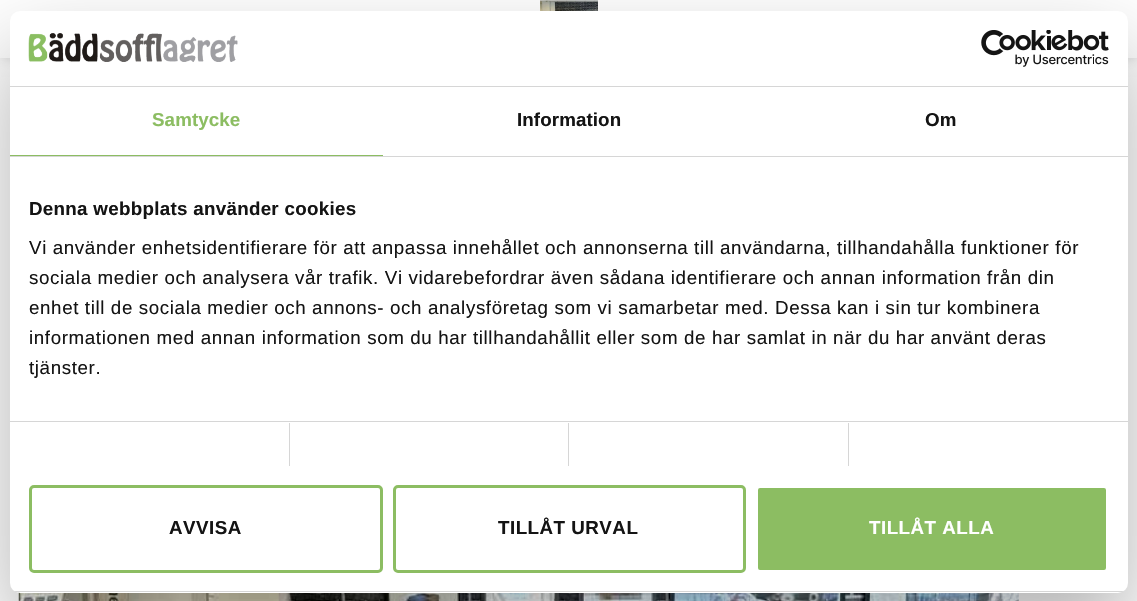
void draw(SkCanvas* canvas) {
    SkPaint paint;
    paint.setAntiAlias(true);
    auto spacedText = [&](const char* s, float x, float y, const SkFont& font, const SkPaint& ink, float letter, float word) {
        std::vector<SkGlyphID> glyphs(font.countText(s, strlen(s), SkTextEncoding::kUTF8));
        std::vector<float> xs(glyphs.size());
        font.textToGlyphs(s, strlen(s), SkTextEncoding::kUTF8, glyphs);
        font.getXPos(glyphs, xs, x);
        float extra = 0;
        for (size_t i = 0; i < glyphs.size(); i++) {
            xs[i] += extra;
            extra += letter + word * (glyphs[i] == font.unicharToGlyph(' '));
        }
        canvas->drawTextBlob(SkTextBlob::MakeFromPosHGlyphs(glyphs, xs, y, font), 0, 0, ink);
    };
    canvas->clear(0xFFFFFFFF);
    paint.setColor(0x26000000);
    paint.setMaskFilter(SkMaskFilter::MakeBlur(kNormal_SkBlurStyle, 6));
    canvas->drawRect(SkRect::MakeXYWH(1, 1, 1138, 58), paint);
    paint.setMaskFilter(nullptr);
    paint.setColor(0xFFFFFFFF);
    canvas->drawRect(SkRect::MakeXYWH(0, 0, 1137, 58), paint);
    canvas->drawImageRect(SkImages::DeferredFromEncodedData(SkData::MakeFromFileName("img1.png")), SkRect::MakeXYWH(540, 0, 58, 11), SkSamplingOptions());
    canvas->drawImageRect(SkImages::DeferredFromEncodedData(SkData::MakeFromFileName("img2.png")), SkRect::MakeXYWH(18, 592, 1001, 9), SkSamplingOptions());
    paint.setColor(0x4D000000);
    paint.setMaskFilter(SkMaskFilter::MakeBlur(kNormal_SkBlurStyle, 42.5f));
    canvas->drawRoundRect(SkRect::MakeXYWH(10, 51, 1118, 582), 10, 10, paint);
    paint.setMaskFilter(nullptr);
    paint.setColor(0xFFFFFFFF);
    canvas->drawRoundRect(SkRect::MakeXYWH(10, 11, 1118, 582), 10, 10, paint);
    paint.setColor(0xFFD6D6D6);
    canvas->drawRect(SkRect::MakeXYWH(10, 86, 1118, 1), paint);
    canvas->drawImageRect(SkImages::DeferredFromEncodedData(SkData::MakeFromFileName("img3.png")), SkRect::MakeXYWH(28, 33, 210, 29), SkSamplingOptions());
    canvas->drawImageRect(SkImages::DeferredFromEncodedData(SkData::MakeFromFileName("img4.png")), SkRect::MakeXYWH(981, 30, 128, 37), SkSamplingOptions());
    canvas->drawRect(SkRect::MakeXYWH(10, 156, 1118, 1), paint);
    paint.setColor(0xFF8CBD62);
    canvas->drawRect(SkRect::MakeXYWH(10, 155, 373, 1), paint);
    SkFont font1(fontMgr->matchFamilyStyle("Liberation Sans", SkFontStyle::Bold()), 18.75f);
    font1.setSubpixel(true);
    spacedText("Samtycke", 152, 126, font1, paint, 0.1f, 0);
    paint.setColor(0xFF141414);
    spacedText("Information", 517, 126, font1, paint, 0.1f, 0);
    spacedText("Om", 925, 126, font1, paint, 0.1f, 0);
    paint.setColor(0xFFD6D6D6);
    canvas->drawRect(SkRect::MakeXYWH(10, 421, 1118, 1), paint);
    paint.setColor(0xFF141414);
    spacedText("Denna webbplats använder cookies", 29, 215, font1, paint, 0.3f, 0);
    SkFont font2(fontMgr->matchFamilyStyle("Liberation Sans", SkFontStyle::Normal()), 18.75f);
    font2.setSubpixel(true);
    spacedText("Vi använder enhetsidentifierare för att anpassa innehållet och annonserna till användarna, tillhandahålla funktioner för", 29, 254, font2, paint, 0.62f, 0);
    spacedText("sociala medier och analysera vår trafik. Vi vidarebefordrar även sådana identifierare och annan information från din", 29, 284, font2, paint, 0.62f, 0);
    spacedText("enhet till de sociala medier och annons- och analysföretag som vi samarbetar med. Dessa kan i sin tur kombinera", 29, 314, font2, paint, 0.62f, 0);
    spacedText("informationen med annan information som du har tillhandahållit eller som de har samlat in när du har använt deras", 29, 344, font2, paint, 0.62f, 0);
    spacedText("tjänster.", 29, 374, font2, paint, 0.62f, 0);
    paint.setColor(0xFFD6D6D6);
    canvas->drawRect(SkRect::MakeXYWH(289, 423, 1, 43), paint);
    canvas->drawRect(SkRect::MakeXYWH(568, 423, 1, 43), paint);
    canvas->drawRect(SkRect::MakeXYWH(848, 423, 1, 43), paint);
    canvas->save();
    canvas->clipPath(SkPathBuilder().moveTo(20, 11).lineTo(1118, 11).cubicTo(1123.5f, 11, 1128, 15.5f, 1128, 21).lineTo(1128, 583).cubicTo(1128, 588.5f, 1123.5f, 593, 1118, 593).lineTo(20, 593).cubicTo(14.5f, 593, 10, 588.5f, 10, 583).lineTo(10, 21).cubicTo(10, 15.5f, 14.5f, 11, 20, 11).close().detach(), true);
    canvas->drawRect(SkRect::MakeXYWH(10, 591, 1118, 1), paint);
    canvas->restore();
    paint.setStyle(SkPaint::kStroke_Style);
    paint.setStrokeWidth(3);
    paint.setColor(0xFF8CBD62);
    canvas->drawRoundRect(SkRect::MakeXYWH(30.5f, 486.5f, 351, 85), 3.5f, 3.5f, paint);
    paint.setStyle(SkPaint::kFill_Style);
    paint.setColor(0xFF141414);
    spacedText("AVVISA", 169, 534, font1, paint, 0.5f, 0);
    paint.setStyle(SkPaint::kStroke_Style);
    paint.setColor(0xFF8CBD62);
    canvas->drawRoundRect(SkRect::MakeXYWH(394.5f, 486.5f, 350, 85), 3.5f, 3.5f, paint);
    paint.setStyle(SkPaint::kFill_Style);
    paint.setColor(0xFF141414);
    spacedText("TILLÅT URVAL", 498, 534, font1, paint, 0.5f, 0);
    paint.setColor(0xFF8CBD62);
    canvas->drawRoundRect(SkRect::MakeXYWH(756.5f, 486.5f, 351, 85), 3.5f, 3.5f, paint);
    paint.setStyle(SkPaint::kStroke_Style);
    paint.setColor(0xFFFFFFFF);
    canvas->drawRoundRect(SkRect::MakeXYWH(756.5f, 486.5f, 351, 85), 3.5f, 3.5f, paint);
    paint.setStyle(SkPaint::kFill_Style);
    spacedText("TILLÅT ALLA", 869, 534, font1, paint, 0.5f, 0);
}
